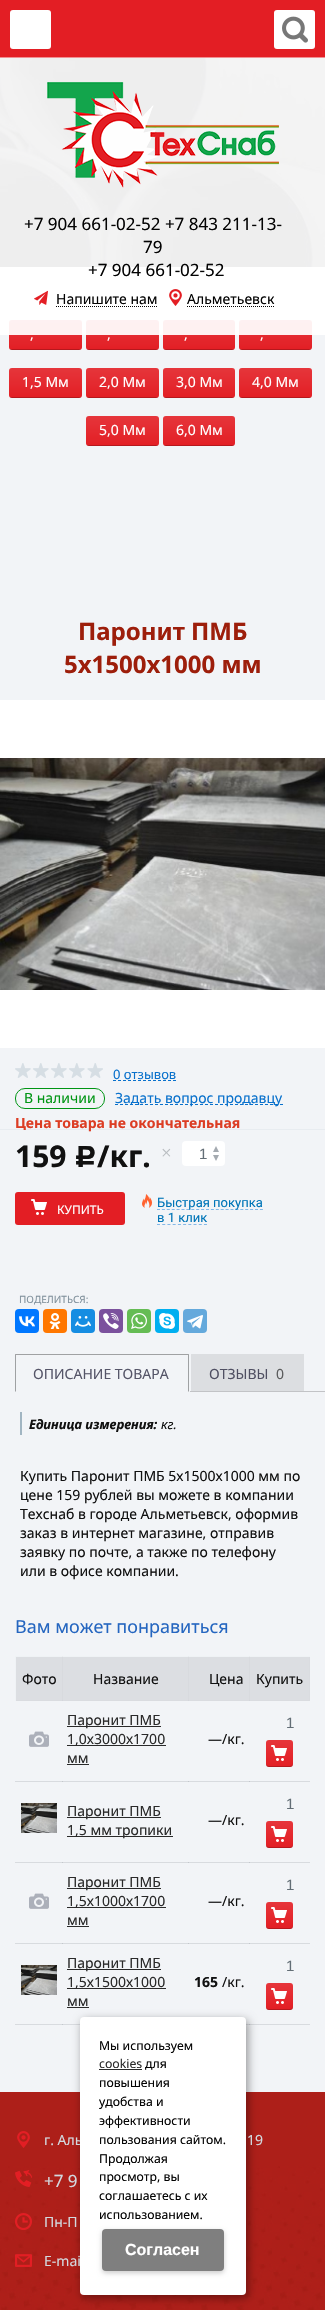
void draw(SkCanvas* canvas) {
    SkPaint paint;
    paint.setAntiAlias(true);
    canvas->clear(0xFFF2F4F7);
    paint.setColor(0xFFEFF2F5);
    canvas->drawRect(SkRect::MakeXYWH(15, 1656, 1, 45), paint);
    canvas->drawRect(SkRect::MakeXYWH(15, 1656, 295, 1), paint);
    paint.setColor(0xFFE9ECEF);
    canvas->drawRect(SkRect::MakeXYWH(62, 1656, 1, 1), paint);
    canvas->drawRect(SkRect::MakeXYWH(188, 1656, 1, 1), paint);
    paint.setColor(0xFFD8DBDF);
    canvas->drawRect(SkRect::MakeXYWH(15, 1781, 295, 1), paint);
    paint.setColor(0xFFC3C7CC);
    canvas->drawRect(SkRect::MakeXYWH(62, 1781, 1, 1), paint);
    canvas->drawRect(SkRect::MakeXYWH(188, 1781, 1, 1), paint);
    paint.setColor(0xFFD8DBDF);
    canvas->drawRect(SkRect::MakeXYWH(15, 1862, 295, 1), paint);
    paint.setColor(0xFFC3C7CC);
    canvas->drawRect(SkRect::MakeXYWH(62, 1862, 1, 1), paint);
    canvas->drawRect(SkRect::MakeXYWH(188, 1862, 1, 1), paint);
    paint.setColor(0xFFD8DBDF);
    canvas->drawRect(SkRect::MakeXYWH(15, 1943, 295, 1), paint);
    paint.setColor(0xFFC3C7CC);
    canvas->drawRect(SkRect::MakeXYWH(62, 1943, 1, 1), paint);
    canvas->drawRect(SkRect::MakeXYWH(188, 1943, 1, 1), paint);
    paint.setColor(0xFFD8DBDF);
    canvas->drawRect(SkRect::MakeXYWH(15, 2024, 65, 1), paint);
    paint.setColor(0xFFC3C7CC);
    canvas->drawRect(SkRect::MakeXYWH(62, 2024, 1, 1), paint);
    paint.setColor(0xFFD8DBDF);
    canvas->drawRect(SkRect::MakeXYWH(246, 2024, 64, 1), paint);
    paint.setColor(0xFFE31E24);
    canvas->drawRect(SkRect::MakeXYWH(0, 0, 325, 57), paint);
    paint.setColor(0xFFF18F92);
    canvas->drawRect(SkRect::MakeXYWH(0, 57, 325, 1), paint);
    paint.setColor(0xFFFFFFFF);
    canvas->drawRoundRect(SkRect::MakeXYWH(10, 10, 41, 39), 3, 3, paint);
    canvas->drawRoundRect(SkRect::MakeXYWH(274, 10, 41, 39), 3, 3, paint);
    canvas->drawImageRect(SkImages::DeferredFromEncodedData(SkData::MakeFromFileName("img1.png")), SkRect::MakeXYWH(282, 16, 26, 27), SkSamplingOptions());
    canvas->drawImageRect(SkImages::DeferredFromEncodedData(SkData::MakeFromFileName("img5.png")), SkRect::MakeXYWH(0, 58, 325, 209), SkSamplingOptions());
    paint.setColor(0xFFE31E24);
    canvas->drawRoundRect(SkRect::MakeXYWH(9, 320, 73, 30), 3, 3, paint);
    {
        const SkColor colors[] = {0x1AFFFFFF, 0x00FFFFFF};
        const float stops[] = {0, 1};
        const SkPoint ends[] = {{46, 320}, {46, 350}};
        paint.setShader(SkGradientShader::MakeLinear(ends, colors, stops, 2, SkTileMode::kClamp));
        paint.setAlpha(255);
    }
    canvas->drawRoundRect(SkRect::MakeXYWH(9, 320, 73, 30), 3, 3, paint);
    paint.setShader(nullptr);
    paint.setColor(0xFFE31E24);
    canvas->drawRoundRect(SkRect::MakeXYWH(86, 320, 73, 30), 3, 3, paint);
    {
        const SkColor colors[] = {0x1AFFFFFF, 0x00FFFFFF};
        const float stops[] = {0, 1};
        const SkPoint ends[] = {{123, 320}, {123, 350}};
        paint.setShader(SkGradientShader::MakeLinear(ends, colors, stops, 2, SkTileMode::kClamp));
        paint.setAlpha(255);
    }
    canvas->drawRoundRect(SkRect::MakeXYWH(86, 320, 73, 30), 3, 3, paint);
    paint.setShader(nullptr);
    paint.setColor(0xFFE31E24);
    canvas->drawRoundRect(SkRect::MakeXYWH(163, 320, 72, 30), 3, 3, paint);
    {
        const SkColor colors[] = {0x1AFFFFFF, 0x00FFFFFF};
        const float stops[] = {0, 1};
        const SkPoint ends[] = {{199, 320}, {199, 350}};
        paint.setShader(SkGradientShader::MakeLinear(ends, colors, stops, 2, SkTileMode::kClamp));
        paint.setAlpha(255);
    }
    canvas->drawRoundRect(SkRect::MakeXYWH(163, 320, 72, 30), 3, 3, paint);
    paint.setShader(nullptr);
    paint.setColor(0xFFE31E24);
    canvas->drawRoundRect(SkRect::MakeXYWH(239, 320, 73, 30), 3, 3, paint);
    {
        const SkColor colors[] = {0x1AFFFFFF, 0x00FFFFFF};
        const float stops[] = {0, 1};
        const SkPoint ends[] = {{276, 320}, {276, 350}};
        paint.setShader(SkGradientShader::MakeLinear(ends, colors, stops, 2, SkTileMode::kClamp));
        paint.setAlpha(255);
    }
    canvas->drawRoundRect(SkRect::MakeXYWH(239, 320, 73, 30), 3, 3, paint);
    paint.setShader(nullptr);
    paint.setColor(0xEDFFFFFF);
    canvas->drawRect(SkRect::MakeXYWH(0, 58, 325, 277), paint);
    canvas->drawImageRect(SkImages::DeferredFromEncodedData(SkData::MakeFromFileName("img2.png")), SkRect::MakeXYWH(47, 82, 232, 106), SkSamplingOptions());
    SkFont font1(fontMgr->matchFamilyStyle("Noto Sans", SkFontStyle::Normal()), 17);
    font1.setSubpixel(true);
    paint.setColor(0xFF030303);
    canvas->drawString("+7 904 661-02-52 +7 843 211-13-", 24, 230, font1, paint);
    canvas->drawString("79", 143, 253, font1, paint);
    canvas->drawString("+7 904 661-02-52", 88, 276, font1, paint);
    canvas->drawImageRect(SkImages::DeferredFromEncodedData(SkData::MakeFromFileName("img3.png")), SkRect::MakeXYWH(34, 290, 14, 15), SkSamplingOptions());
    paint.setStyle(SkPaint::kStroke_Style);
    paint.setStrokeWidth(1);
    paint.setPathEffect(SkDashPathEffect::Make({{1, 1}}, 0));
    canvas->drawPath(SkPathBuilder().moveTo(56, 306.5f).lineTo(158, 306.5f).detach(), paint);
    paint.setPathEffect(nullptr);
    SkFont font2(fontMgr->matchFamilyStyle("Noto Sans", SkFontStyle::Normal()), 14);
    font2.setSubpixel(true);
    paint.setStyle(SkPaint::kFill_Style);
    canvas->drawString("Напишите нам", 56, 304, font2, paint);
    canvas->drawImageRect(SkImages::DeferredFromEncodedData(SkData::MakeFromFileName("img4.png")), SkRect::MakeXYWH(169, 289, 13, 17), SkSamplingOptions());
    paint.setStyle(SkPaint::kStroke_Style);
    paint.setPathEffect(SkDashPathEffect::Make({{1, 1}}, 0));
    canvas->drawPath(SkPathBuilder().moveTo(187, 306.5f).lineTo(275, 306.5f).detach(), paint);
    paint.setPathEffect(nullptr);
    paint.setStyle(SkPaint::kFill_Style);
    canvas->drawString("Альметьевск", 187, 304, font2, paint);
    canvas->save();
    canvas->clipPath(SkPathBuilder().moveTo(12, 320).lineTo(79, 320).cubicTo(80.5f, 320, 82, 321.5f, 82, 323).lineTo(82, 347).cubicTo(82, 348.5f, 80.5f, 350, 79, 350).lineTo(12, 350).cubicTo(10.5f, 350, 9, 348.5f, 9, 347).lineTo(9, 323).cubicTo(9, 321.5f, 10.5f, 320, 12, 320).close().detach(), true);
    paint.setColor(0x33000000);
    canvas->drawRect(SkRect::MakeXYWH(9, 349, 73, 1), paint);
    canvas->restore();
    paint.setColor(0xFFFFFFFF);
    canvas->drawString(",", 30, 339, font2, paint);
    canvas->save();
    canvas->clipPath(SkPathBuilder().moveTo(89, 320).lineTo(156, 320).cubicTo(157.5f, 320, 159, 321.5f, 159, 323).lineTo(159, 347).cubicTo(159, 348.5f, 157.5f, 350, 156, 350).lineTo(89, 350).cubicTo(87.5f, 350, 86, 348.5f, 86, 347).lineTo(86, 323).cubicTo(86, 321.5f, 87.5f, 320, 89, 320).close().detach(), true);
    paint.setColor(0x33000000);
    canvas->drawRect(SkRect::MakeXYWH(86, 349, 73, 1), paint);
    canvas->restore();
    paint.setColor(0xFFFFFFFF);
    canvas->drawString(",", 107, 339, font2, paint);
    canvas->save();
    canvas->clipPath(SkPathBuilder().moveTo(166, 320).lineTo(232, 320).cubicTo(233.5f, 320, 235, 321.5f, 235, 323).lineTo(235, 347).cubicTo(235, 348.5f, 233.5f, 350, 232, 350).lineTo(166, 350).cubicTo(164.5f, 350, 163, 348.5f, 163, 347).lineTo(163, 323).cubicTo(163, 321.5f, 164.5f, 320, 166, 320).close().detach(), true);
    paint.setColor(0x33000000);
    canvas->drawRect(SkRect::MakeXYWH(163, 349, 72, 1), paint);
    canvas->restore();
    paint.setColor(0xFFFFFFFF);
    canvas->drawString(",", 184, 339, font2, paint);
    canvas->save();
    canvas->clipPath(SkPathBuilder().moveTo(242, 320).lineTo(309, 320).cubicTo(310.5f, 320, 312, 321.5f, 312, 323).lineTo(312, 347).cubicTo(312, 348.5f, 310.5f, 350, 309, 350).lineTo(242, 350).cubicTo(240.5f, 350, 239, 348.5f, 239, 347).lineTo(239, 323).cubicTo(239, 321.5f, 240.5f, 320, 242, 320).close().detach(), true);
    paint.setColor(0x33000000);
    canvas->drawRect(SkRect::MakeXYWH(239, 349, 73, 1), paint);
    canvas->restore();
    paint.setColor(0xFFFFFFFF);
    canvas->drawString(",", 260, 339, font2, paint);
    paint.setColor(0xFFE31E24);
    canvas->drawRoundRect(SkRect::MakeXYWH(9, 368, 73, 30), 3, 3, paint);
    {
        const SkColor colors[] = {0x1AFFFFFF, 0x00FFFFFF};
        const float stops[] = {0, 1};
        const SkPoint ends[] = {{46, 368}, {46, 398}};
        paint.setShader(SkGradientShader::MakeLinear(ends, colors, stops, 2, SkTileMode::kClamp));
        paint.setAlpha(255);
    }
    canvas->drawRoundRect(SkRect::MakeXYWH(9, 368, 73, 30), 3, 3, paint);
    canvas->save();
    canvas->clipPath(SkPathBuilder().moveTo(12, 368).lineTo(79, 368).cubicTo(80.5f, 368, 82, 369.5f, 82, 371).lineTo(82, 395).cubicTo(82, 396.5f, 80.5f, 398, 79, 398).lineTo(12, 398).cubicTo(10.5f, 398, 9, 396.5f, 9, 395).lineTo(9, 371).cubicTo(9, 369.5f, 10.5f, 368, 12, 368).close().detach(), true);
    paint.setShader(nullptr);
    paint.setColor(0x33000000);
    canvas->drawRect(SkRect::MakeXYWH(9, 397, 73, 1), paint);
    canvas->restore();
    paint.setColor(0xFFFFFFFF);
    canvas->drawString("1,5 Мм", 22, 387, font2, paint);
    paint.setColor(0xFFE31E24);
    canvas->drawRoundRect(SkRect::MakeXYWH(86, 368, 73, 30), 3, 3, paint);
    {
        const SkColor colors[] = {0x1AFFFFFF, 0x00FFFFFF};
        const float stops[] = {0, 1};
        const SkPoint ends[] = {{123, 368}, {123, 398}};
        paint.setShader(SkGradientShader::MakeLinear(ends, colors, stops, 2, SkTileMode::kClamp));
        paint.setAlpha(255);
    }
    canvas->drawRoundRect(SkRect::MakeXYWH(86, 368, 73, 30), 3, 3, paint);
    canvas->save();
    canvas->clipPath(SkPathBuilder().moveTo(89, 368).lineTo(156, 368).cubicTo(157.5f, 368, 159, 369.5f, 159, 371).lineTo(159, 395).cubicTo(159, 396.5f, 157.5f, 398, 156, 398).lineTo(89, 398).cubicTo(87.5f, 398, 86, 396.5f, 86, 395).lineTo(86, 371).cubicTo(86, 369.5f, 87.5f, 368, 89, 368).close().detach(), true);
    paint.setShader(nullptr);
    paint.setColor(0x33000000);
    canvas->drawRect(SkRect::MakeXYWH(86, 397, 73, 1), paint);
    canvas->restore();
    paint.setColor(0xFFFFFFFF);
    canvas->drawString("2,0 Мм", 99, 387, font2, paint);
    paint.setColor(0xFFE31E24);
    canvas->drawRoundRect(SkRect::MakeXYWH(163, 368, 72, 30), 3, 3, paint);
    {
        const SkColor colors[] = {0x1AFFFFFF, 0x00FFFFFF};
        const float stops[] = {0, 1};
        const SkPoint ends[] = {{199, 368}, {199, 398}};
        paint.setShader(SkGradientShader::MakeLinear(ends, colors, stops, 2, SkTileMode::kClamp));
        paint.setAlpha(255);
    }
    canvas->drawRoundRect(SkRect::MakeXYWH(163, 368, 72, 30), 3, 3, paint);
    canvas->save();
    canvas->clipPath(SkPathBuilder().moveTo(166, 368).lineTo(232, 368).cubicTo(233.5f, 368, 235, 369.5f, 235, 371).lineTo(235, 395).cubicTo(235, 396.5f, 233.5f, 398, 232, 398).lineTo(166, 398).cubicTo(164.5f, 398, 163, 396.5f, 163, 395).lineTo(163, 371).cubicTo(163, 369.5f, 164.5f, 368, 166, 368).close().detach(), true);
    paint.setShader(nullptr);
    paint.setColor(0x33000000);
    canvas->drawRect(SkRect::MakeXYWH(163, 397, 72, 1), paint);
    canvas->restore();
    paint.setColor(0xFFFFFFFF);
    canvas->drawString("3,0 Мм", 176, 387, font2, paint);
    paint.setColor(0xFFE31E24);
    canvas->drawRoundRect(SkRect::MakeXYWH(239, 368, 73, 30), 3, 3, paint);
    {
        const SkColor colors[] = {0x1AFFFFFF, 0x00FFFFFF};
        const float stops[] = {0, 1};
        const SkPoint ends[] = {{276, 368}, {276, 398}};
        paint.setShader(SkGradientShader::MakeLinear(ends, colors, stops, 2, SkTileMode::kClamp));
        paint.setAlpha(255);
    }
    canvas->drawRoundRect(SkRect::MakeXYWH(239, 368, 73, 30), 3, 3, paint);
    canvas->save();
    canvas->clipPath(SkPathBuilder().moveTo(242, 368).lineTo(309, 368).cubicTo(310.5f, 368, 312, 369.5f, 312, 371).lineTo(312, 395).cubicTo(312, 396.5f, 310.5f, 398, 309, 398).lineTo(242, 398).cubicTo(240.5f, 398, 239, 396.5f, 239, 395).lineTo(239, 371).cubicTo(239, 369.5f, 240.5f, 368, 242, 368).close().detach(), true);
    paint.setShader(nullptr);
    paint.setColor(0x33000000);
    canvas->drawRect(SkRect::MakeXYWH(239, 397, 73, 1), paint);
    canvas->restore();
    paint.setColor(0xFFFFFFFF);
    canvas->drawString("4,0 Мм", 252, 387, font2, paint);
    paint.setColor(0xFFE31E24);
    canvas->drawRoundRect(SkRect::MakeXYWH(86, 416, 73, 30), 3, 3, paint);
    {
        const SkColor colors[] = {0x1AFFFFFF, 0x00FFFFFF};
        const float stops[] = {0, 1};
        const SkPoint ends[] = {{123, 416}, {123, 446}};
        paint.setShader(SkGradientShader::MakeLinear(ends, colors, stops, 2, SkTileMode::kClamp));
        paint.setAlpha(255);
    }
    canvas->drawRoundRect(SkRect::MakeXYWH(86, 416, 73, 30), 3, 3, paint);
    canvas->save();
    canvas->clipPath(SkPathBuilder().moveTo(89, 416).lineTo(156, 416).cubicTo(157.5f, 416, 159, 417.5f, 159, 419).lineTo(159, 443).cubicTo(159, 444.5f, 157.5f, 446, 156, 446).lineTo(89, 446).cubicTo(87.5f, 446, 86, 444.5f, 86, 443).lineTo(86, 419).cubicTo(86, 417.5f, 87.5f, 416, 89, 416).close().detach(), true);
    paint.setShader(nullptr);
    paint.setColor(0x33000000);
    canvas->drawRect(SkRect::MakeXYWH(86, 445, 73, 1), paint);
    canvas->restore();
    paint.setColor(0xFFFFFFFF);
    canvas->drawString("5,0 Мм", 99, 435, font2, paint);
    paint.setColor(0xFFE31E24);
    canvas->drawRoundRect(SkRect::MakeXYWH(163, 416, 72, 30), 3, 3, paint);
    {
        const SkColor colors[] = {0x1AFFFFFF, 0x00FFFFFF};
        const float stops[] = {0, 1};
        const SkPoint ends[] = {{199, 416}, {199, 446}};
        paint.setShader(SkGradientShader::MakeLinear(ends, colors, stops, 2, SkTileMode::kClamp));
        paint.setAlpha(255);
    }
    canvas->drawRoundRect(SkRect::MakeXYWH(163, 416, 72, 30), 3, 3, paint);
    canvas->save();
    canvas->clipPath(SkPathBuilder().moveTo(166, 416).lineTo(232, 416).cubicTo(233.5f, 416, 235, 417.5f, 235, 419).lineTo(235, 443).cubicTo(235, 444.5f, 233.5f, 446, 232, 446).lineTo(166, 446).cubicTo(164.5f, 446, 163, 444.5f, 163, 443).lineTo(163, 419).cubicTo(163, 417.5f, 164.5f, 416, 166, 416).close().detach(), true);
    paint.setShader(nullptr);
    paint.setColor(0x33000000);
    canvas->drawRect(SkRect::MakeXYWH(163, 445, 72, 1), paint);
    canvas->restore();
    paint.setColor(0xFFFFFFFF);
    canvas->drawString("6,0 Мм", 176, 435, font2, paint);
    SkFont font3(fontMgr->matchFamilyStyle("Noto Sans", SkFontStyle::Bold()), 24);
    font3.setSubpixel(true);
    paint.setColor(0xFF9D1E0B);
    canvas->drawString("Паронит ПМБ", 78, 640, font3, paint);
    canvas->drawString("5х1500х1000 мм", 64, 673, font3, paint);
    paint.setColor(0xFFFFFFFF);
    canvas->drawRect(SkRect::MakeXYWH(0, 700, 325, 348), paint);
    canvas->drawImageRect(SkImages::DeferredFromEncodedData(SkData::MakeFromFileName("img6.png")), SkRect::MakeXYWH(0, 758, 325, 232), SkSamplingOptions());
    canvas->drawImageRect(SkImages::DeferredFromEncodedData(SkData::MakeFromFileName("img7.png")), SkRect::MakeXYWH(15, 1063, 88, 15), SkSamplingOptions());
    paint.setStyle(SkPaint::kStroke_Style);
    paint.setColor(0xFF0971CC);
    paint.setPathEffect(SkDashPathEffect::Make({{3, 2}}, 0));
    canvas->drawPath(SkPathBuilder().moveTo(113, 1080.5f).lineTo(176, 1080.5f).detach(), paint);
    paint.setPathEffect(nullptr);
    SkFont font4(fontMgr->matchFamilyStyle("Noto Sans", SkFontStyle::Normal()), 13);
    font4.setSubpixel(true);
    paint.setStyle(SkPaint::kFill_Style);
    canvas->drawString("0 отзывов", 113, 1079, font4, paint);
    paint.setStyle(SkPaint::kStroke_Style);
    paint.setColor(0xFF009514);
    canvas->drawRoundRect(SkRect::MakeXYWH(15.5f, 1088.5f, 89, 20), 9.5f, 9.5f, paint);
    paint.setStyle(SkPaint::kFill_Style);
    canvas->drawString("В наличии", 24, 1103, font2, paint);
    paint.setStyle(SkPaint::kStroke_Style);
    paint.setColor(0xFF0971CC);
    paint.setPathEffect(SkDashPathEffect::Make({{3, 2}}, 0));
    canvas->drawPath(SkPathBuilder().moveTo(115, 1104.5f).lineTo(283, 1104.5f).detach(), paint);
    paint.setPathEffect(nullptr);
    paint.setStyle(SkPaint::kFill_Style);
    canvas->drawString("Задать вопрос продавцу", 115, 1103, font2, paint);
    paint.setColor(0xFFE8ECF0);
    canvas->drawRect(SkRect::MakeXYWH(0, 1129, 325, 1), paint);
    SkFont font5(fontMgr->matchFamilyStyle("Noto Sans", SkFontStyle::Bold()), 14);
    font5.setSubpixel(true);
    paint.setColor(0xFFDC3D24);
    canvas->drawString("Цена товара не окончательная", 15, 1128, font5, paint);
    SkFont font6(fontMgr->matchFamilyStyle("Noto Sans", SkFontStyle::Bold()), 30);
    font6.setSubpixel(true);
    paint.setColor(0xFF111111);
    canvas->drawString("159", 15, 1167, font6, paint);
    SkFont font7(fontMgr->matchFamilyStyle("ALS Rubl", SkFontStyle::Normal()), 30);
    font7.setSubpixel(true);
    canvas->drawString("c", 74, 1167, font7, paint);
    canvas->drawString("/кг.", 97, 1167, font6, paint);
    SkFont font8(fontMgr->matchFamilyStyle("Liberation Serif", SkFontStyle::Normal()), 19);
    font8.setSubpixel(true);
    paint.setColor(0xFFB8BCC0);
    canvas->drawString("×", 161, 1159, font8, paint);
    paint.setColor(0xFFFFFFFF);
    canvas->drawRoundRect(SkRect::MakeXYWH(182, 1141, 43, 25), 4, 4, paint);
    SkFont font9(fontMgr->matchFamilyStyle("Liberation Sans", SkFontStyle::Normal()), 15);
    font9.setSubpixel(true);
    paint.setColor(0xFF636E76);
    canvas->drawString("1", 199, 1159, font9, paint);
    paint.setColor(0xFFA4AAB0);
    canvas->drawPath(SkPathBuilder().moveTo(219, 1152).lineTo(213, 1152).lineTo(216, 1146).close().moveTo(213, 1155).lineTo(219, 1155).lineTo(216, 1161).close().detach(), paint);
    paint.setColor(0xFFE31E24);
    canvas->drawRoundRect(SkRect::MakeXYWH(15, 1192, 110, 33), 3, 3, paint);
    canvas->drawImageRect(SkImages::DeferredFromEncodedData(SkData::MakeFromFileName("img8.png")), SkRect::MakeXYWH(31, 1199, 16, 16), SkSamplingOptions());
    SkFont font10(fontMgr->matchFamilyStyle("Noto Sans", SkFontStyle::Normal()), 12);
    font10.setSubpixel(true);
    paint.setColor(0xFFFFFFFF);
    canvas->drawString("КУПИТЬ", 57, 1214, font10, paint);
    canvas->drawImageRect(SkImages::DeferredFromEncodedData(SkData::MakeFromFileName("img9.png")), SkRect::MakeXYWH(142, 1194, 10, 14), SkSamplingOptions());
    paint.setStyle(SkPaint::kStroke_Style);
    paint.setColor(0xFF84B8E7);
    paint.setPathEffect(SkDashPathEffect::Make({{3, 1.9f}}, 0));
    canvas->drawPath(SkPathBuilder().moveTo(157, 1209.5f).lineTo(263, 1209.5f).detach(), paint);
    paint.setPathEffect(nullptr);
    SkFont font11(fontMgr->matchFamilyStyle("Roboto", SkFontStyle::Normal()), 13);
    font11.setSubpixel(true);
    paint.setStyle(SkPaint::kFill_Style);
    paint.setColor(0xFF0075B8);
    canvas->drawString("Быстрая покупка", 157, 1207, font11, paint);
    paint.setStyle(SkPaint::kStroke_Style);
    paint.setColor(0xFF84B8E7);
    paint.setPathEffect(SkDashPathEffect::Make({{3, 2.22f}}, 0));
    canvas->drawPath(SkPathBuilder().moveTo(157, 1224.5f).lineTo(207, 1224.5f).detach(), paint);
    paint.setPathEffect(nullptr);
    paint.setStyle(SkPaint::kFill_Style);
    paint.setColor(0xFF0075B8);
    canvas->drawString("в 1 клик", 157, 1222, font11, paint);
    SkFont font12(fontMgr->matchFamilyStyle("Noto Sans", SkFontStyle::Normal()), 10);
    font12.setSubpixel(true);
    paint.setColor(0xFF81919C);
    canvas->drawString("ПОДЕЛИТЬСЯ:", 19, 1303, font12, paint);
    paint.setColor(0xFF0077FF);
    canvas->drawRoundRect(SkRect::MakeXYWH(15, 1309, 24, 24), 4, 4, paint);
    canvas->drawImageRect(SkImages::DeferredFromEncodedData(SkData::MakeFromFileName("img10.png")), SkRect::MakeXYWH(19, 1316, 16, 11), SkSamplingOptions());
    paint.setColor(0xFFFF7700);
    canvas->drawRoundRect(SkRect::MakeXYWH(43, 1309, 24, 24), 4, 4, paint);
    canvas->drawImageRect(SkImages::DeferredFromEncodedData(SkData::MakeFromFileName("img11.png")), SkRect::MakeXYWH(49, 1313, 12, 16), SkSamplingOptions());
    paint.setColor(0xFF168DE2);
    canvas->drawRoundRect(SkRect::MakeXYWH(71, 1309, 24, 24), 4, 4, paint);
    canvas->drawImageRect(SkImages::DeferredFromEncodedData(SkData::MakeFromFileName("img12.png")), SkRect::MakeXYWH(75, 1316, 16, 11), SkSamplingOptions());
    paint.setColor(0xFF7B519D);
    canvas->drawRoundRect(SkRect::MakeXYWH(99, 1309, 24, 24), 4, 4, paint);
    canvas->drawImageRect(SkImages::DeferredFromEncodedData(SkData::MakeFromFileName("img13.png")), SkRect::MakeXYWH(103, 1313, 16, 16), SkSamplingOptions());
    paint.setColor(0xFF65BC54);
    canvas->drawRoundRect(SkRect::MakeXYWH(127, 1309, 24, 24), 4, 4, paint);
    canvas->drawImageRect(SkImages::DeferredFromEncodedData(SkData::MakeFromFileName("img14.png")), SkRect::MakeXYWH(131, 1313, 16, 16), SkSamplingOptions());
    paint.setColor(0xFF00AFF0);
    canvas->drawRoundRect(SkRect::MakeXYWH(155, 1309, 24, 24), 4, 4, paint);
    canvas->drawImageRect(SkImages::DeferredFromEncodedData(SkData::MakeFromFileName("img15.png")), SkRect::MakeXYWH(159, 1313, 16, 16), SkSamplingOptions());
    paint.setColor(0xFF64A9DC);
    canvas->drawRoundRect(SkRect::MakeXYWH(183, 1309, 24, 24), 4, 4, paint);
    canvas->drawImageRect(SkImages::DeferredFromEncodedData(SkData::MakeFromFileName("img16.png")), SkRect::MakeXYWH(187, 1315, 16, 14), SkSamplingOptions());
    paint.setColor(0xFFA0A1A3);
    canvas->drawPath(SkPathBuilder().moveTo(15, 1354).lineTo(189, 1354).lineTo(188, 1355).lineTo(16, 1355).close().detach(), paint);
    paint.setColor(0x57000000);
    canvas->drawPath(SkPathBuilder().moveTo(189, 1354).lineTo(189, 1392).lineTo(188, 1391).lineTo(188, 1355).close().detach(), paint);
    canvas->drawPath(SkPathBuilder().moveTo(15, 1392).lineTo(15, 1354).lineTo(16, 1355).lineTo(16, 1391).close().detach(), paint);
    paint.setColor(0xFF555568);
    canvas->drawString("ОПИСАНИЕ ТОВАРА", 33, 1379, font2, paint);
    paint.setColor(0xFFC2C3C6);
    canvas->drawRect(SkRect::MakeXYWH(190, 1391, 135, 1), paint);
    paint.setColor(0xFFDCDEE1);
    canvas->drawRect(SkRect::MakeXYWH(191, 1354, 113, 37), paint);
    paint.setColor(0xFF4F4F62);
    canvas->drawString("ОТЗЫВЫ", 209, 1379, font2, paint);
    paint.setColor(0xFF5A5B5C);
    canvas->drawString("0", 276, 1379, font2, paint);
    paint.setColor(0xFFA1B5C2);
    canvas->drawRect(SkRect::MakeXYWH(20, 1412, 2, 23), paint);
    SkFont font13(fontMgr->matchFamilyStyle("Noto Sans", SkFontStyle::BoldItalic()), 13);
    font13.setSubpixel(true);
    paint.setColor(0xFF111111);
    canvas->drawString("Единица измерения:", 29, 1429, font13, paint);
    SkFont font14(fontMgr->matchFamilyStyle("Noto Sans", SkFontStyle::Italic()), 13);
    font14.setSubpixel(true);
    canvas->drawString("кг.", 161, 1429, font14, paint);
    canvas->drawString("Купить Паронит ПМБ 5х1500х1000 мм по", 20, 1481, font2, paint);
    canvas->drawString("цене 159 рублей вы можете в компании", 20, 1500, font2, paint);
    canvas->drawString("Техснаб в городе Альметьевск, оформив", 20, 1519, font2, paint);
    canvas->drawString("заказ в интернет магазине, отправив", 20, 1538, font2, paint);
    canvas->drawString("заявку по почте, а также по телефону", 20, 1557, font2, paint);
    canvas->drawString("или в офисе компании.", 20, 1576, font2, paint);
    SkFont font15(fontMgr->matchFamilyStyle("Noto Sans", SkFontStyle::Normal()), 18);
    font15.setSubpixel(true);
    paint.setColor(0xFF2566C0);
    canvas->drawString("Вам может понравиться", 15, 1633, font15, paint);
    paint.setColor(0xFFDCDEE2);
    canvas->drawRect(SkRect::MakeXYWH(16, 1657, 46, 43), paint);
    paint.setColor(0xFFDADCE0);
    canvas->drawRect(SkRect::MakeXYWH(16, 1700, 46, 1), paint);
    paint.setColor(0xFF111111);
    canvas->drawString("Фото", 22, 1684, font2, paint);
    paint.setColor(0xFFDCDEE2);
    canvas->drawRect(SkRect::MakeXYWH(63, 1657, 125, 43), paint);
    paint.setColor(0xFFD8DADE);
    canvas->drawRect(SkRect::MakeXYWH(62, 1657, 1, 44), paint);
    paint.setColor(0xFFDADCE0);
    canvas->drawRect(SkRect::MakeXYWH(62, 1700, 187, 1), paint);
    paint.setColor(0xFFD4D6DC);
    canvas->drawRect(SkRect::MakeXYWH(62, 1700, 1, 1), paint);
    paint.setColor(0xFFD8DADE);
    canvas->drawRect(SkRect::MakeXYWH(188, 1657, 1, 44), paint);
    paint.setColor(0xFFD4D6DC);
    canvas->drawRect(SkRect::MakeXYWH(188, 1700, 1, 1), paint);
    paint.setColor(0xFF111111);
    canvas->drawString("Название", 93, 1684, font2, paint);
    paint.setColor(0xFFDCDEE2);
    canvas->drawRect(SkRect::MakeXYWH(189, 1657, 60, 43), paint);
    paint.setColor(0xFF111111);
    canvas->drawString("Цена", 209, 1684, font2, paint);
    paint.setColor(0xFFDCDEE2);
    canvas->drawRect(SkRect::MakeXYWH(250, 1657, 59, 43), paint);
    paint.setColor(0xFFD8DADE);
    canvas->drawRect(SkRect::MakeXYWH(249, 1657, 1, 44), paint);
    paint.setColor(0xFFDADCE0);
    canvas->drawRect(SkRect::MakeXYWH(309, 1657, 1, 44), paint);
    paint.setColor(0xFFE9ECEF);
    canvas->drawRect(SkRect::MakeXYWH(249, 1656, 1, 1), paint);
    paint.setColor(0xFFDADCE0);
    canvas->drawRect(SkRect::MakeXYWH(249, 1700, 61, 1), paint);
    paint.setColor(0xFFD4D6DC);
    canvas->drawRect(SkRect::MakeXYWH(249, 1700, 1, 1), paint);
    paint.setColor(0xFF111111);
    canvas->drawString("Купить", 256, 1684, font2, paint);
    paint.setColor(0xFF2A2A2A);
    canvas->drawRect(SkRect::MakeXYWH(67, 1726, 94, 1), paint);
    canvas->drawString("Паронит ПМБ", 67, 1725, font2, paint);
    canvas->drawRect(SkRect::MakeXYWH(67, 1745, 99, 1), paint);
    canvas->drawString("1,0х3000х1700", 67, 1744, font2, paint);
    canvas->drawString("мм", 67, 1763, font2, paint);
    canvas->drawRect(SkRect::MakeXYWH(67, 1764, 22, 1), paint);
    paint.setColor(0xFFC3C7CC);
    canvas->drawRect(SkRect::MakeXYWH(249, 1781, 1, 1), paint);
    paint.setColor(0xFF636E76);
    canvas->drawString("1", 286, 1728, font9, paint);
    paint.setColor(0xFFE31E24);
    canvas->drawRoundRect(SkRect::MakeXYWH(266, 1740, 27, 27), 3, 3, paint);
    canvas->drawImageRect(SkImages::DeferredFromEncodedData(SkData::MakeFromFileName("img8.png")), SkRect::MakeXYWH(271, 1745, 16, 16), SkSamplingOptions());
    {
        const SkColor colors[] = {0x1AFFFFFF, 0x00FFFFFF};
        const float stops[] = {0, 1};
        const SkPoint ends[] = {{280, 1740}, {280, 1767}};
        paint.setShader(SkGradientShader::MakeLinear(ends, colors, stops, 2, SkTileMode::kClamp));
        paint.setAlpha(255);
    }
    canvas->drawRoundRect(SkRect::MakeXYWH(266, 1740, 27, 27), 3, 3, paint);
    paint.setShader(nullptr);
    paint.setColor(0x33000000);
    canvas->drawPath(SkPathBuilder().moveTo(266, 1763).cubicTo(266, 1767.5f, 268.5f, 1767, 272.5f, 1767).lineTo(286.5f, 1767).cubicTo(290.5f, 1767, 293, 1767.5f, 293, 1763).cubicTo(293, 1765, 292, 1766, 290, 1766).lineTo(269, 1766).cubicTo(267, 1766, 266, 1765, 266, 1763).close().detach(), paint);
    canvas->drawImageRect(SkImages::DeferredFromEncodedData(SkData::MakeFromFileName("img17.png")), SkRect::MakeXYWH(29, 1731, 20, 16), SkSamplingOptions());
    paint.setColor(0xFF111111);
    canvas->drawString("—/кг.", 208, 1744, font2, paint);
    canvas->drawImageRect(SkImages::DeferredFromEncodedData(SkData::MakeFromFileName("img18.png")), SkRect::MakeXYWH(21, 1803, 36, 30), SkSamplingOptions());
    paint.setColor(0xFF2A2A2A);
    canvas->drawRect(SkRect::MakeXYWH(67, 1817, 94, 1), paint);
    canvas->drawString("Паронит ПМБ", 67, 1816, font2, paint);
    canvas->drawRect(SkRect::MakeXYWH(67, 1836, 106, 1), paint);
    canvas->drawString("1,5 мм тропики", 67, 1835, font2, paint);
    paint.setColor(0xFF111111);
    canvas->drawString("—/кг.", 208, 1825, font2, paint);
    paint.setColor(0xFFC3C7CC);
    canvas->drawRect(SkRect::MakeXYWH(249, 1862, 1, 1), paint);
    paint.setColor(0xFF636E76);
    canvas->drawString("1", 286, 1809, font9, paint);
    paint.setColor(0xFFE31E24);
    canvas->drawRoundRect(SkRect::MakeXYWH(266, 1821, 27, 27), 3, 3, paint);
    canvas->drawImageRect(SkImages::DeferredFromEncodedData(SkData::MakeFromFileName("img8.png")), SkRect::MakeXYWH(271, 1826, 16, 16), SkSamplingOptions());
    {
        const SkColor colors[] = {0x1AFFFFFF, 0x00FFFFFF};
        const float stops[] = {0, 1};
        const SkPoint ends[] = {{280, 1821}, {280, 1848}};
        paint.setShader(SkGradientShader::MakeLinear(ends, colors, stops, 2, SkTileMode::kClamp));
        paint.setAlpha(255);
    }
    canvas->drawRoundRect(SkRect::MakeXYWH(266, 1821, 27, 27), 3, 3, paint);
    paint.setShader(nullptr);
    paint.setColor(0x33000000);
    canvas->drawPath(SkPathBuilder().moveTo(266, 1844).cubicTo(266, 1848.5f, 268.5f, 1848, 272.5f, 1848).lineTo(286.5f, 1848).cubicTo(290.5f, 1848, 293, 1848.5f, 293, 1844).cubicTo(293, 1846, 292, 1847, 290, 1847).lineTo(269, 1847).cubicTo(267, 1847, 266, 1846, 266, 1844).close().detach(), paint);
    paint.setColor(0xFF2A2A2A);
    canvas->drawRect(SkRect::MakeXYWH(67, 1888, 94, 1), paint);
    canvas->drawString("Паронит ПМБ", 67, 1887, font2, paint);
    canvas->drawRect(SkRect::MakeXYWH(67, 1907, 99, 1), paint);
    canvas->drawString("1,5х1000х1700", 67, 1906, font2, paint);
    canvas->drawString("мм", 67, 1925, font2, paint);
    canvas->drawRect(SkRect::MakeXYWH(67, 1926, 22, 1), paint);
    paint.setColor(0xFFC3C7CC);
    canvas->drawRect(SkRect::MakeXYWH(249, 1943, 1, 1), paint);
    paint.setColor(0xFF636E76);
    canvas->drawString("1", 286, 1890, font9, paint);
    paint.setColor(0xFFE31E24);
    canvas->drawRoundRect(SkRect::MakeXYWH(266, 1902, 27, 27), 3, 3, paint);
    canvas->drawImageRect(SkImages::DeferredFromEncodedData(SkData::MakeFromFileName("img8.png")), SkRect::MakeXYWH(271, 1907, 16, 16), SkSamplingOptions());
    {
        const SkColor colors[] = {0x1AFFFFFF, 0x00FFFFFF};
        const float stops[] = {0, 1};
        const SkPoint ends[] = {{280, 1902}, {280, 1929}};
        paint.setShader(SkGradientShader::MakeLinear(ends, colors, stops, 2, SkTileMode::kClamp));
        paint.setAlpha(255);
    }
    canvas->drawRoundRect(SkRect::MakeXYWH(266, 1902, 27, 27), 3, 3, paint);
    paint.setShader(nullptr);
    paint.setColor(0x33000000);
    canvas->drawPath(SkPathBuilder().moveTo(266, 1925).cubicTo(266, 1929.5f, 268.5f, 1929, 272.5f, 1929).lineTo(286.5f, 1929).cubicTo(290.5f, 1929, 293, 1929.5f, 293, 1925).cubicTo(293, 1927, 292, 1928, 290, 1928).lineTo(269, 1928).cubicTo(267, 1928, 266, 1927, 266, 1925).close().detach(), paint);
    canvas->drawImageRect(SkImages::DeferredFromEncodedData(SkData::MakeFromFileName("img17.png")), SkRect::MakeXYWH(29, 1893, 20, 16), SkSamplingOptions());
    paint.setColor(0xFF111111);
    canvas->drawString("—/кг.", 208, 1906, font2, paint);
    canvas->drawImageRect(SkImages::DeferredFromEncodedData(SkData::MakeFromFileName("img18.png")), SkRect::MakeXYWH(21, 1965, 36, 30), SkSamplingOptions());
    paint.setColor(0xFF2A2A2A);
    canvas->drawRect(SkRect::MakeXYWH(67, 1969, 94, 1), paint);
    canvas->drawString("Паронит ПМБ", 67, 1968, font2, paint);
    canvas->drawRect(SkRect::MakeXYWH(67, 1988, 99, 1), paint);
    canvas->drawString("1,5х1500х1000", 67, 1987, font2, paint);
    canvas->drawString("мм", 67, 2006, font2, paint);
    canvas->drawRect(SkRect::MakeXYWH(67, 2007, 22, 1), paint);
    paint.setColor(0xFF111111);
    canvas->drawString("165", 194, 1987, font5, paint);
    canvas->drawString("/кг.", 222, 1987, font2, paint);
    paint.setColor(0xFFC3C7CC);
    canvas->drawRect(SkRect::MakeXYWH(249, 2024, 1, 1), paint);
    paint.setColor(0xFF636E76);
    canvas->drawString("1", 286, 1971, font9, paint);
    paint.setColor(0xFFE31E24);
    canvas->drawRoundRect(SkRect::MakeXYWH(266, 1983, 27, 27), 3, 3, paint);
    canvas->drawImageRect(SkImages::DeferredFromEncodedData(SkData::MakeFromFileName("img8.png")), SkRect::MakeXYWH(271, 1988, 16, 16), SkSamplingOptions());
    {
        const SkColor colors[] = {0x1AFFFFFF, 0x00FFFFFF};
        const float stops[] = {0, 1};
        const SkPoint ends[] = {{280, 1983}, {280, 2010}};
        paint.setShader(SkGradientShader::MakeLinear(ends, colors, stops, 2, SkTileMode::kClamp));
        paint.setAlpha(255);
    }
    canvas->drawRoundRect(SkRect::MakeXYWH(266, 1983, 27, 27), 3, 3, paint);
    paint.setShader(nullptr);
    paint.setColor(0x33000000);
    canvas->drawPath(SkPathBuilder().moveTo(266, 2006).cubicTo(266, 2010.5f, 268.5f, 2010, 272.5f, 2010).lineTo(286.5f, 2010).cubicTo(290.5f, 2010, 293, 2010.5f, 293, 2006).cubicTo(293, 2008, 292, 2009, 290, 2009).lineTo(269, 2009).cubicTo(267, 2009, 266, 2008, 266, 2006).close().detach(), paint);
    paint.setColor(0xFFAD1F19);
    canvas->drawRect(SkRect::MakeXYWH(0, 2092, 325, 74), paint);
    canvas->drawImageRect(SkImages::DeferredFromEncodedData(SkData::MakeFromFileName("img19.png")), SkRect::MakeXYWH(0, 2166, 325, 144), SkSamplingOptions());
    paint.setColor(0x66000000);
    paint.setMaskFilter(SkMaskFilter::MakeBlur(kNormal_SkBlurStyle, 5));
    canvas->drawRoundRect(SkRect::MakeXYWH(82, 2020, 166, 278), 4, 4, paint);
    paint.setMaskFilter(nullptr);
    paint.setColor(0xFFD2D9DF);
    canvas->drawString("г. Аль", 44, 2145, font2, paint);
    paint.setColor(0xFFFFFFFF);
    canvas->drawRoundRect(SkRect::MakeXYWH(80, 2017, 166, 278), 4, 4, paint);
    SkFont font16(fontMgr->matchFamilyStyle("Noto Sans", SkFontStyle::Normal()), 12.25f);
    font16.setSubpixel(true);
    paint.setColor(0xFF030303);
    canvas->drawString("Мы используем", 99, 2050, font16, paint);
    paint.setColor(0xFF2A2A2A);
    canvas->drawString("cookies", 99, 2068, font16, paint);
    canvas->drawRect(SkRect::MakeXYWH(99, 2069, 43, 1), paint);
    paint.setColor(0xFF030303);
    canvas->drawString("для", 145, 2068, font16, paint);
    canvas->drawString("повышения", 99, 2087, font16, paint);
    canvas->drawString("удобства и", 99, 2106, font16, paint);
    canvas->drawString("эффективности", 99, 2125, font16, paint);
    canvas->drawString("пользования сайтом.", 99, 2144, font16, paint);
    canvas->drawString("Продолжая", 99, 2163, font16, paint);
    canvas->drawString("просмотр, вы", 99, 2181, font16, paint);
    canvas->drawString("соглашаетесь с их", 99, 2200, font16, paint);
    canvas->drawString("использованием.", 99, 2219, font16, paint);
    paint.setColor(0x33000000);
    paint.setMaskFilter(SkMaskFilter::MakeBlur(kNormal_SkBlurStyle, 2.5f));
    canvas->drawRoundRect(SkRect::MakeXYWH(102, 2231, 122, 42), 4, 4, paint);
    paint.setMaskFilter(nullptr);
    paint.setColor(0xFF7F7F7F);
    canvas->drawRoundRect(SkRect::MakeXYWH(102, 2229, 122, 42), 4, 4, paint);
    SkFont font17(fontMgr->matchFamilyStyle("Liberation Sans", SkFontStyle::Bold()), 16);
    font17.setSubpixel(true);
    paint.setColor(0xFFFFFFFF);
    canvas->drawString("Cогласен", 125, 2255, font17, paint);
    canvas->drawImageRect(SkImages::DeferredFromEncodedData(SkData::MakeFromFileName("img20.png")), SkRect::MakeXYWH(17, 2131, 13, 17), SkSamplingOptions());
    paint.setColor(0xFFD2D9DF);
    canvas->drawString("19", 247, 2145, font2, paint);
    canvas->drawImageRect(SkImages::DeferredFromEncodedData(SkData::MakeFromFileName("img21.png")), SkRect::MakeXYWH(15, 2170, 17, 17), SkSamplingOptions());
    canvas->drawString("+7 9", 44, 2187, font1, paint);
    canvas->drawImageRect(SkImages::DeferredFromEncodedData(SkData::MakeFromFileName("img22.png")), SkRect::MakeXYWH(15, 2213, 17, 17), SkSamplingOptions());
    canvas->drawString("Пн-П", 44, 2227, font2, paint);
    canvas->drawImageRect(SkImages::DeferredFromEncodedData(SkData::MakeFromFileName("img23.png")), SkRect::MakeXYWH(15, 2254, 17, 13), SkSamplingOptions());
    canvas->drawString("E-mai", 44, 2266, font2, paint);
}
